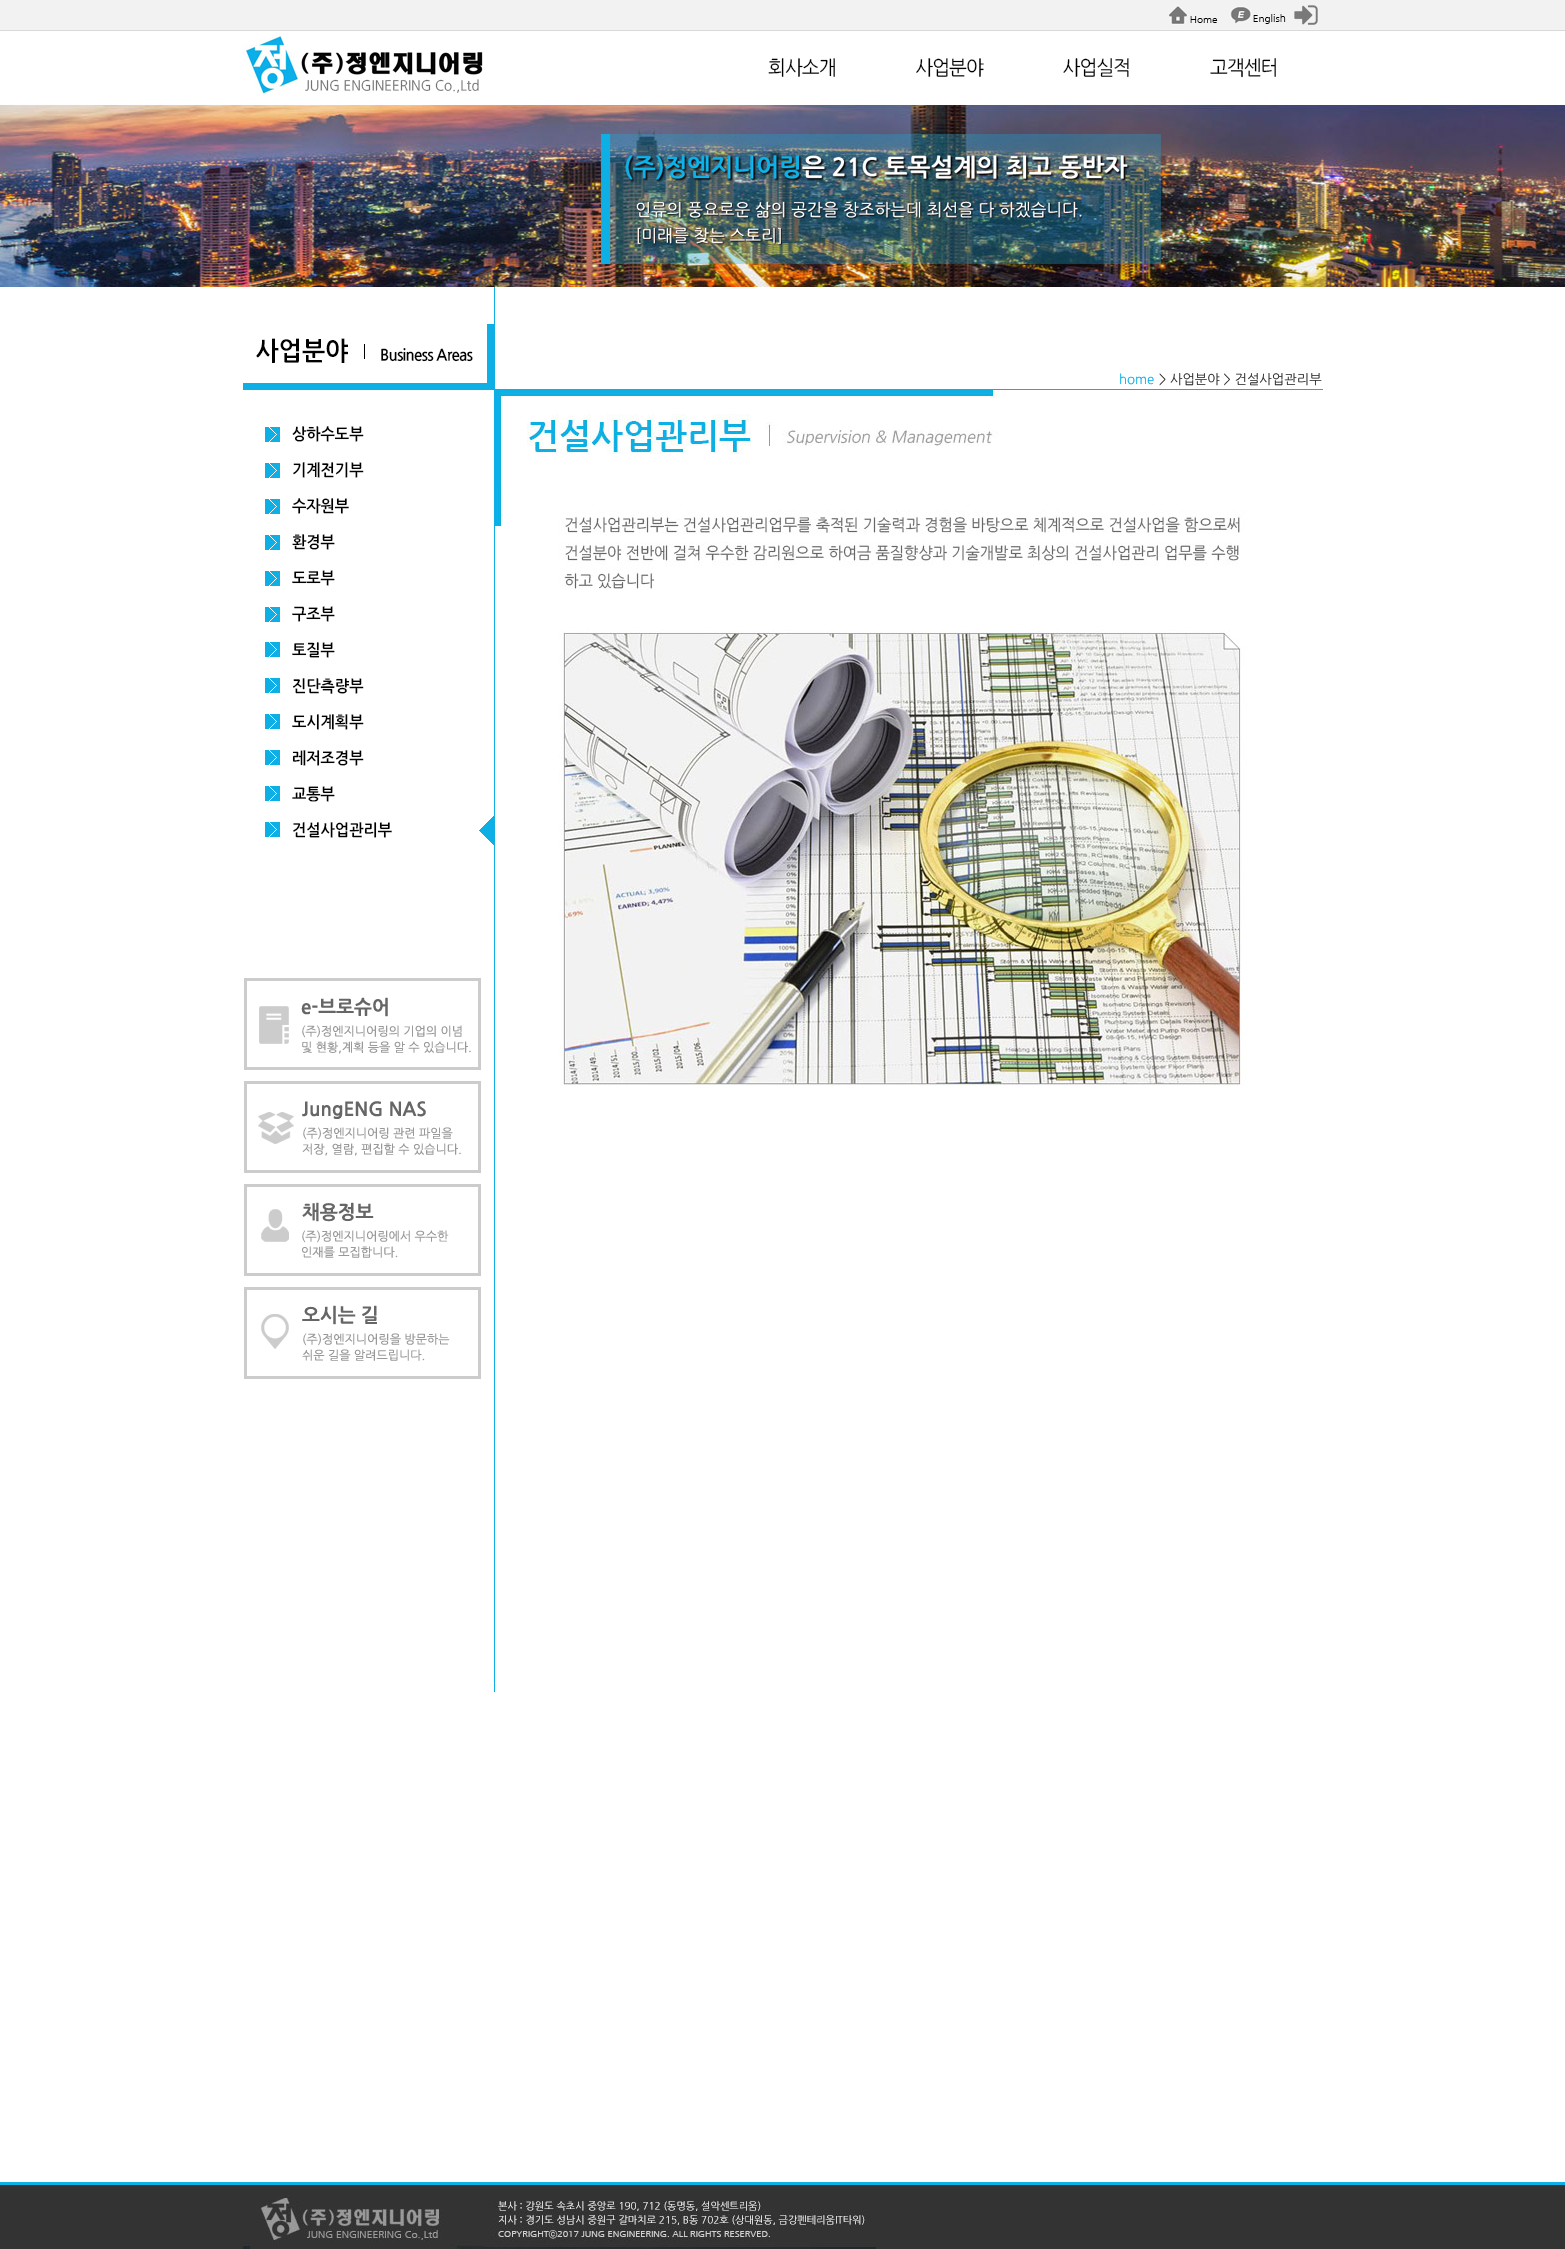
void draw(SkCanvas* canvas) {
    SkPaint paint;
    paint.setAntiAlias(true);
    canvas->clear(0xFFFFFFFF);
    canvas->drawImageRect(SkImages::DeferredFromEncodedData(SkData::MakeFromFileName("img1.png")), SkRect::MakeXYWH(0, 0, 1565, 287), SkSamplingOptions());
    canvas->drawImageRect(SkImages::DeferredFromEncodedData(SkData::MakeFromFileName("img2.png")), SkRect::MakeXYWH(1159, 5, 130, 26), SkSamplingOptions());
    canvas->drawImageRect(SkImages::DeferredFromEncodedData(SkData::MakeFromFileName("img3.png")), SkRect::MakeXYWH(1289, 5, 34, 26), SkSamplingOptions());
    canvas->drawImageRect(SkImages::DeferredFromEncodedData(SkData::MakeFromFileName("img4.png")), SkRect::MakeXYWH(243, 32, 240, 73), SkSamplingOptions());
    canvas->drawImageRect(SkImages::DeferredFromEncodedData(SkData::MakeFromFileName("img5.png")), SkRect::MakeXYWH(735, 58, 100, 47), SkSamplingOptions());
    canvas->drawImageRect(SkImages::DeferredFromEncodedData(SkData::MakeFromFileName("img6.png")), SkRect::MakeXYWH(909, 58, 75, 47), SkSamplingOptions());
    canvas->drawImageRect(SkImages::DeferredFromEncodedData(SkData::MakeFromFileName("img7.png")), SkRect::MakeXYWH(1063, 58, 66, 20), SkSamplingOptions());
    canvas->drawImageRect(SkImages::DeferredFromEncodedData(SkData::MakeFromFileName("img8.png")), SkRect::MakeXYWH(1210, 58, 66, 20), SkSamplingOptions());
    paint.setColor(0xFFFFFFFF);
    canvas->drawRect(SkRect::MakeXYWH(501, 104, 214, 1), paint);
    canvas->drawImageRect(SkImages::DeferredFromEncodedData(SkData::MakeFromFileName("img9.png")), SkRect::MakeXYWH(601, 134, 560, 130), SkSamplingOptions());
    canvas->drawImageRect(SkImages::DeferredFromEncodedData(SkData::MakeFromFileName("img10.png")), SkRect::MakeXYWH(243, 287, 252, 569), SkSamplingOptions());
    canvas->drawImageRect(SkImages::DeferredFromEncodedData(SkData::MakeFromFileName("img11.png")), SkRect::MakeXYWH(244, 978, 237, 401), SkSamplingOptions());
    paint.setColor(0xFF0DAFE4);
    canvas->drawRect(SkRect::MakeXYWH(494, 856, 1, 836), paint);
    SkFont font1(fontMgr->matchFamilyStyle("NanumGothic", SkFontStyle::Normal()), 13.25f);
    font1.setSubpixel(true);
    paint.setColor(0xFF0EAFE5);
    canvas->drawString("home", 1119, 384, font1, paint);
    paint.setColor(0xFF333333);
    canvas->drawString("> 사업분야 > 건설사업관리부", 1159, 384, font1, paint);
    paint.setColor(0xFF0EAFE5);
    canvas->drawRect(SkRect::MakeXYWH(495, 389, 828, 1), paint);
    canvas->drawImageRect(SkImages::DeferredFromEncodedData(SkData::MakeFromFileName("img12.png")), SkRect::MakeXYWH(495, 390, 752, 696), SkSamplingOptions());
    paint.setColor(0xFF0DAFE4);
    canvas->drawRect(SkRect::MakeXYWH(0, 2182, 1565, 3), paint);
    paint.setColor(0xFF333333);
    canvas->drawRect(SkRect::MakeXYWH(0, 2185, 1565, 64), paint);
    canvas->drawImageRect(SkImages::DeferredFromEncodedData(SkData::MakeFromFileName("img13.png")), SkRect::MakeXYWH(243, 2195, 633, 54), SkSamplingOptions());
}
